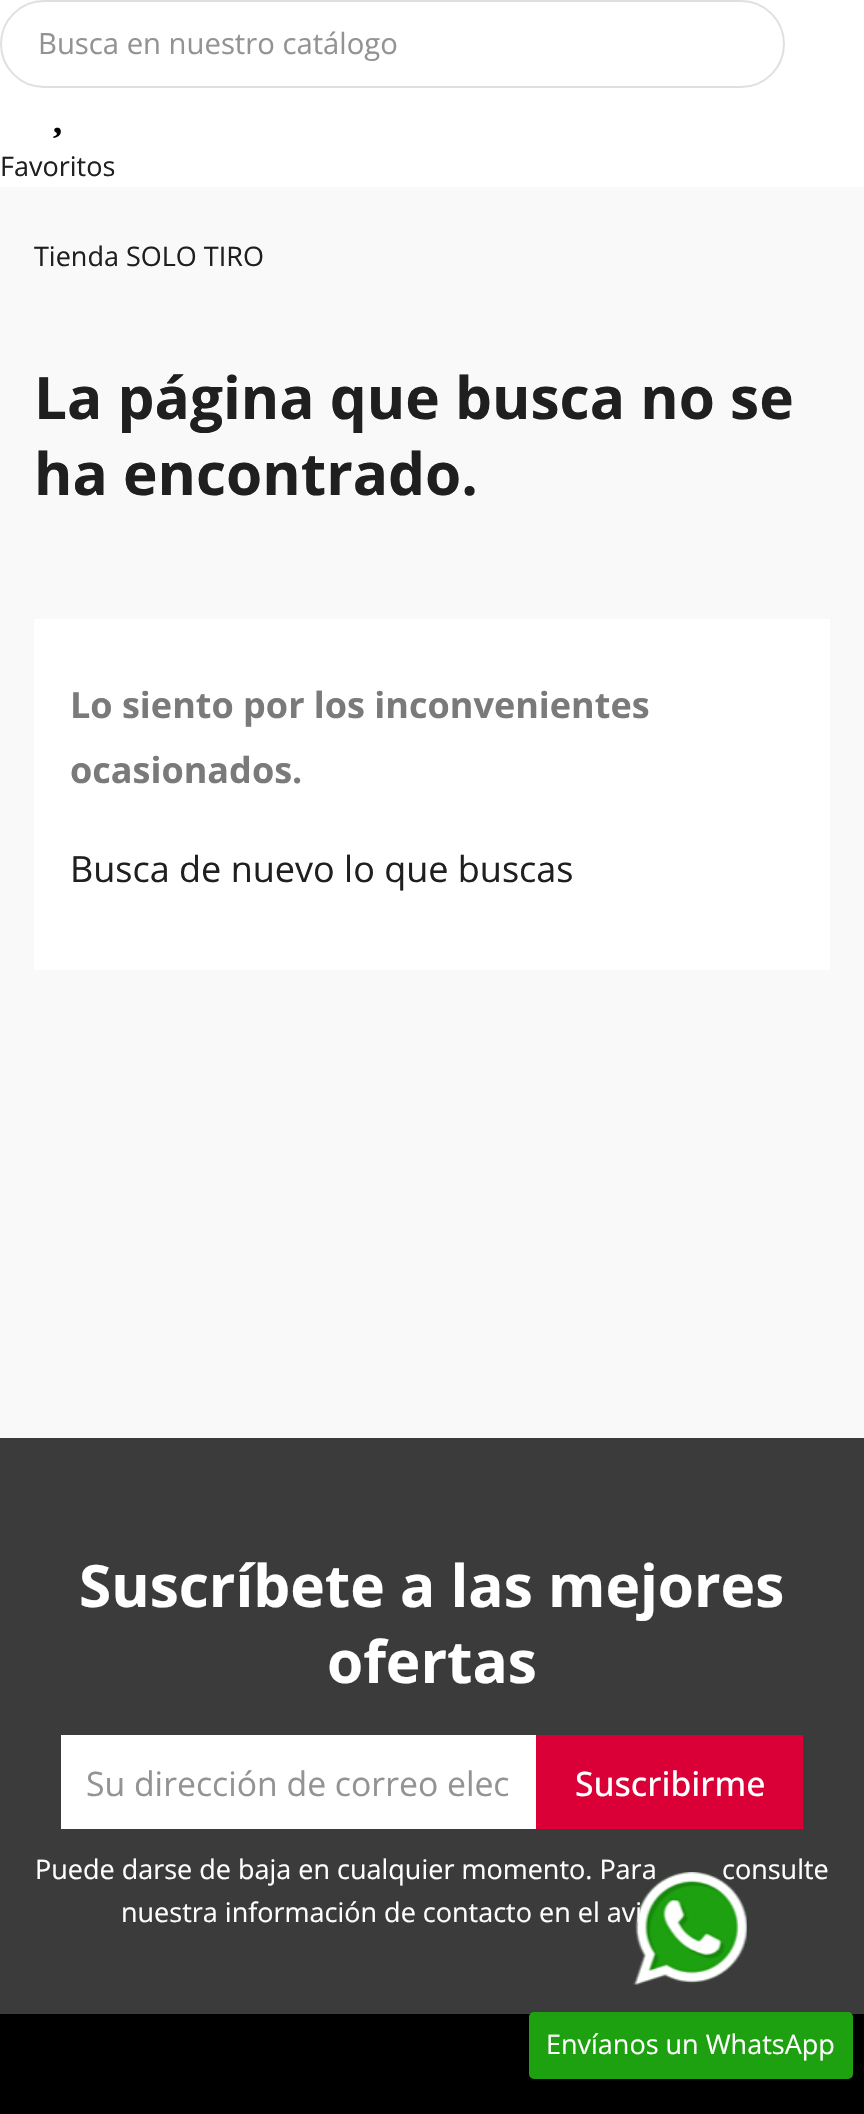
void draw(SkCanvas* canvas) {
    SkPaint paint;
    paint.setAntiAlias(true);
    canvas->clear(0xFFFAF9F9);
    paint.setColor(0xFFFFFFFF);
    canvas->drawRect(SkRect::MakeXYWH(0, 0, 864, 187), paint);
    paint.setStyle(SkPaint::kStroke_Style);
    paint.setStrokeWidth(2);
    paint.setColor(0xFFE0E0E0);
    canvas->drawRoundRect(SkRect::MakeXYWH(1, 1, 783, 86), 43, 43, paint);
    SkFont font1(fontMgr->matchFamilyStyle("Open Sans", SkFontStyle::Normal()), 29.25f);
    font1.setSubpixel(true);
    paint.setStyle(SkPaint::kFill_Style);
    paint.setColor(0xFF939393);
    canvas->drawString("Busca en nuestro catálogo", 38, 54, font1, paint);
    canvas->drawImageRect(SkImages::DeferredFromEncodedData(SkData::MakeFromFileName("img1.png")), SkRect::MakeXYWH(53, 127, 8, 11), SkSamplingOptions());
    SkFont font2(fontMgr->matchFamilyStyle("Open Sans", SkFontStyle::Normal()), 27);
    font2.setSubpixel(true);
    paint.setColor(0xFF1F1F1F);
    canvas->drawString("Favoritos", 0, 176, font2, paint);
    canvas->drawString("Tienda SOLO TIRO", 34, 266, font2, paint);
    SkFont font3(fontMgr->matchFamilyStyle("Open Sans", SkFontStyle::Bold()), 58.5f);
    font3.setSubpixel(true);
    canvas->drawString("La página que busca no se", 34, 419, font3, paint);
    canvas->drawString("ha encontrado.", 34, 495, font3, paint);
    paint.setColor(0xFFFFFFFF);
    canvas->drawRect(SkRect::MakeXYWH(34, 619, 796, 351), paint);
    SkFont font4(fontMgr->matchFamilyStyle("Open Sans", SkFontStyle::Bold()), 36);
    font4.setSubpixel(true);
    paint.setColor(0xFF7A7A7A);
    canvas->drawString("Lo siento por los inconvenientes", 70, 718, font4, paint);
    canvas->drawString("ocasionados.", 70, 783, font4, paint);
    SkFont font5(fontMgr->matchFamilyStyle("Open Sans", SkFontStyle::Normal()), 36);
    font5.setSubpixel(true);
    paint.setColor(0xFF1F1F1F);
    canvas->drawString("Busca de nuevo lo que buscas", 70, 882, font5, paint);
    paint.setColor(0xFF000000);
    canvas->drawRect(SkRect::MakeXYWH(0, 2014, 864, 100), paint);
    paint.setColor(0xFF3B3B3B);
    canvas->drawRect(SkRect::MakeXYWH(0, 1438, 864, 576), paint);
    paint.setColor(0xFFFFFFFF);
    canvas->drawString("Suscríbete a las mejores", 79, 1607, font3, paint);
    canvas->drawString("ofertas", 327, 1683, font3, paint);
    canvas->drawRect(SkRect::MakeXYWH(61, 1735, 475, 94), paint);
    SkFont font6(fontMgr->matchFamilyStyle("Open Sans", SkFontStyle::Normal()), 33.75f);
    font6.setSubpixel(true);
    paint.setColor(0xFF939393);
    canvas->drawString("Su dirección de correo elec", 86, 1796, font6, paint);
    paint.setColor(0xFFDA0037);
    canvas->drawRect(SkRect::MakeXYWH(536, 1735, 267, 94), paint);
    SkFont font7(fontMgr->matchFamilyStyle("Open Sans", SkFontStyle(500, SkFontStyle::kNormal_Width, SkFontStyle::kUpright_Slant)), 33.75f);
    font7.setSubpixel(true);
    paint.setColor(0xFFFFFFFF);
    canvas->drawString("Suscribirme", 575, 1796, font7, paint);
    canvas->drawString("Puede darse de baja en cualquier momento. Para", 35, 1879, font2, paint);
    canvas->drawString("consulte", 722, 1879, font2, paint);
    canvas->drawString("nuestra información de contacto en el avi", 121, 1922, font2, paint);
    canvas->drawImageRect(SkImages::DeferredFromEncodedData(SkData::MakeFromFileName("img2.png")), SkRect::MakeXYWH(633, 1872, 114, 113), SkSamplingOptions());
    paint.setColor(0xFF1DA110);
    canvas->drawRoundRect(SkRect::MakeXYWH(529, 2012, 324, 67), 5, 5, paint);
    paint.setColor(0xFFFFFFFF);
    canvas->drawString("Envíanos un WhatsApp", 546, 2054, font2, paint);
}
